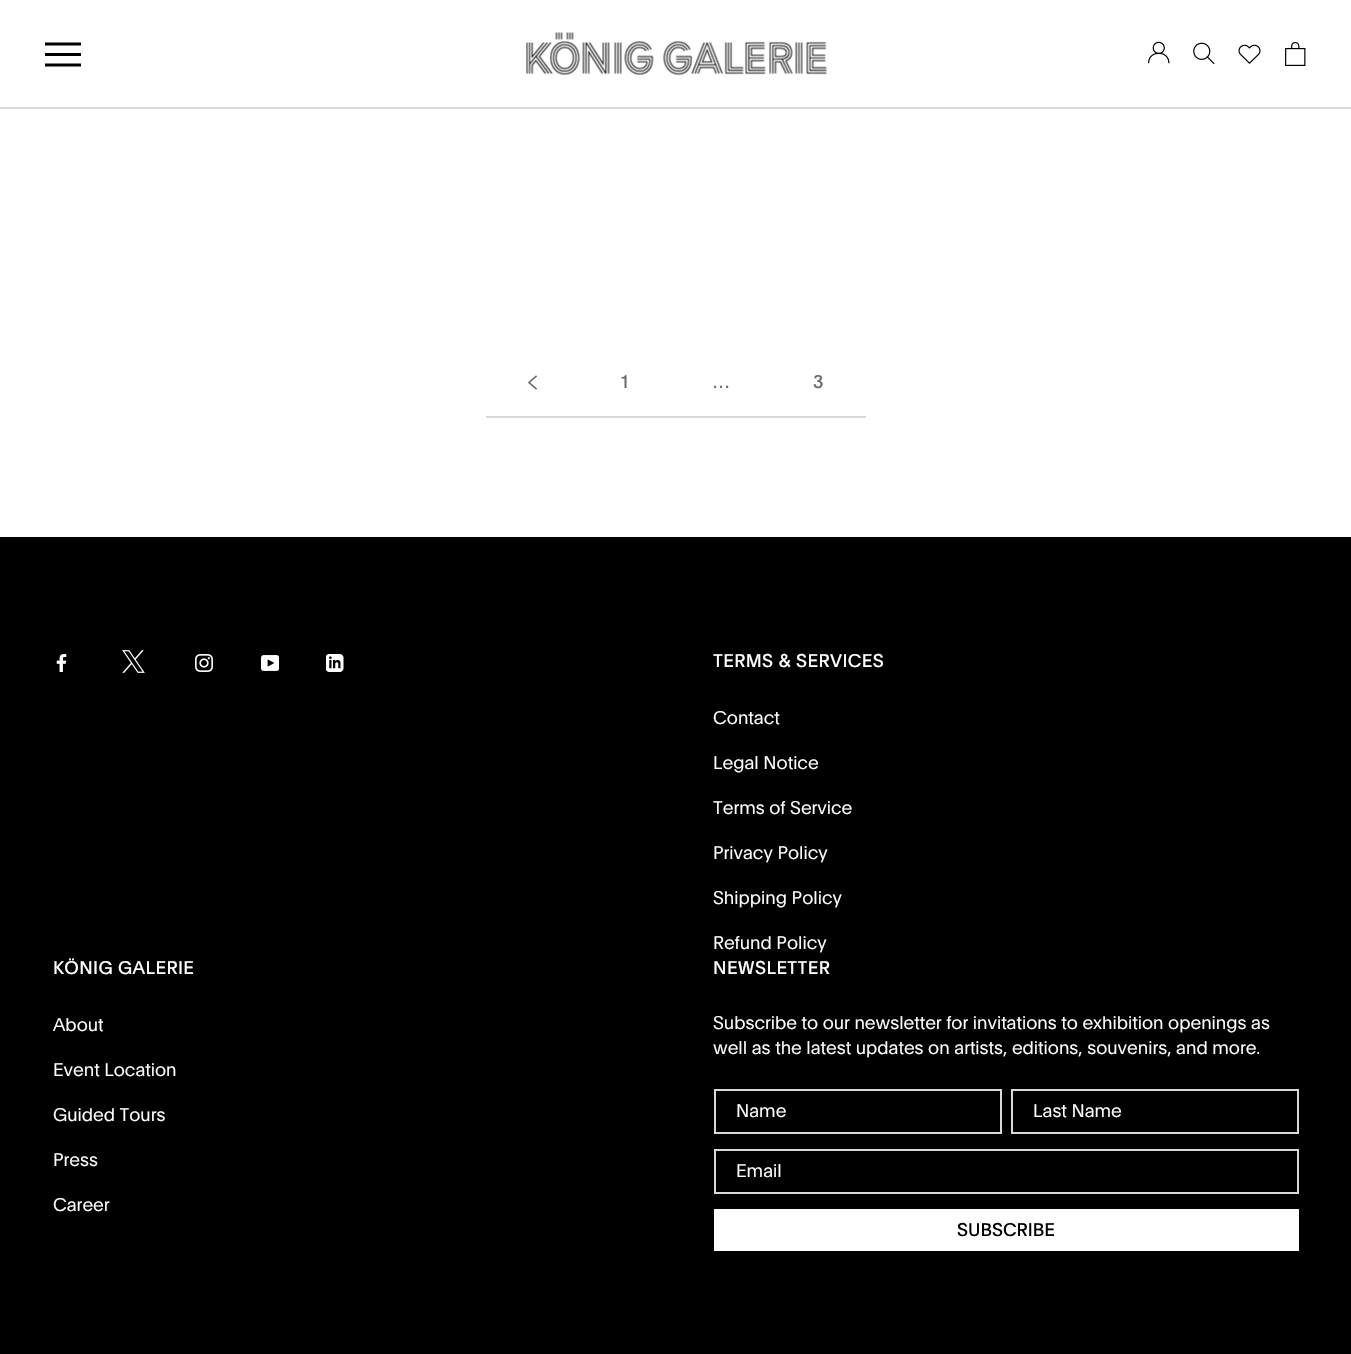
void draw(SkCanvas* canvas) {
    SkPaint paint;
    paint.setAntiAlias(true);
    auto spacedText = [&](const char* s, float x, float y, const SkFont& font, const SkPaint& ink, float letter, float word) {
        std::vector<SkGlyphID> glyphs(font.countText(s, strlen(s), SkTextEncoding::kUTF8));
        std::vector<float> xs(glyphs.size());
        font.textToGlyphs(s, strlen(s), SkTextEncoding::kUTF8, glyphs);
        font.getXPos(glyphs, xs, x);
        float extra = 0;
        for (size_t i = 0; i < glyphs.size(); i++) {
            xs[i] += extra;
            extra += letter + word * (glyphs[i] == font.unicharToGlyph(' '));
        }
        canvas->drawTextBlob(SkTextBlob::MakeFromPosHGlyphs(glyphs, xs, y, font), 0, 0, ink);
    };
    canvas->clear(0xFFFFFFFF);
    paint.setColor(0xFFD9D9D9);
    canvas->drawRect(SkRect::MakeXYWH(0, 107, 1351, 2), paint);
    paint.setColor(0xFF000000);
    canvas->drawPath(SkPathBuilder().moveTo(45, 66.5f).lineTo(45, 63.5f).lineTo(81, 63.5f).lineTo(81, 66.5f).close().moveTo(45, 53).lineTo(81, 53).lineTo(81, 56).lineTo(45, 56).close().moveTo(45, 42.5f).lineTo(81, 42.5f).lineTo(81, 45.5f).lineTo(45, 45.5f).close().detach(), paint);
    canvas->drawImageRect(SkImages::DeferredFromEncodedData(SkData::MakeFromFileName("img1.png")), SkRect::MakeXYWH(526, 32, 301, 43), SkSamplingOptions());
    canvas->drawImageRect(SkImages::DeferredFromEncodedData(SkData::MakeFromFileName("img2.png")), SkRect::MakeXYWH(1148, 41, 22, 23), SkSamplingOptions());
    canvas->drawImageRect(SkImages::DeferredFromEncodedData(SkData::MakeFromFileName("img3.png")), SkRect::MakeXYWH(1193, 42, 22, 23), SkSamplingOptions());
    canvas->drawImageRect(SkImages::DeferredFromEncodedData(SkData::MakeFromFileName("img4.png")), SkRect::MakeXYWH(1238, 44, 23, 20), SkSamplingOptions());
    canvas->drawImageRect(SkImages::DeferredFromEncodedData(SkData::MakeFromFileName("img5.png")), SkRect::MakeXYWH(1285, 42, 21, 24), SkSamplingOptions());
    SkFont font1(fontMgr->matchFamilyStyle("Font", SkFontStyle::Normal()), 18);
    font1.setSubpixel(true);
    paint.setColor(0xFF6A6A6A);
    canvas->drawString("3", 813, 388, font1, paint);
    paint.setColor(0xFFD9D9D9);
    canvas->drawRect(SkRect::MakeXYWH(486, 416, 380, 2), paint);
    paint.setStyle(SkPaint::kStroke_Style);
    paint.setStrokeWidth(1.6f);
    paint.setStrokeCap(SkPaint::kSquare_Cap);
    paint.setColor(0xFF6A6A6A);
    canvas->drawPath(SkPathBuilder().moveTo(536, 376.5f).lineTo(529, 382.5f).lineTo(536, 388.5f).detach(), paint);
    paint.setStyle(SkPaint::kFill_Style);
    canvas->drawString("1", 621, 388, font1, paint);
    canvas->drawString("…", 713, 388, font1, paint);
    paint.setColor(0xFF000000);
    canvas->drawRect(SkRect::MakeXYWH(0, 537, 1351, 817), paint);
    canvas->drawImageRect(SkImages::DeferredFromEncodedData(SkData::MakeFromFileName("img6.png")), SkRect::MakeXYWH(56, 654, 11, 18), SkSamplingOptions());
    canvas->drawImageRect(SkImages::DeferredFromEncodedData(SkData::MakeFromFileName("img7.png")), SkRect::MakeXYWH(122, 650, 23, 23), SkSamplingOptions());
    canvas->drawImageRect(SkImages::DeferredFromEncodedData(SkData::MakeFromFileName("img8.png")), SkRect::MakeXYWH(195, 654, 18, 18), SkSamplingOptions());
    canvas->drawImageRect(SkImages::DeferredFromEncodedData(SkData::MakeFromFileName("img9.png")), SkRect::MakeXYWH(261, 655, 18, 16), SkSamplingOptions());
    canvas->drawImageRect(SkImages::DeferredFromEncodedData(SkData::MakeFromFileName("img10.png")), SkRect::MakeXYWH(326, 654, 18, 18), SkSamplingOptions());
    paint.setColor(0xFFFFFFFF);
    spacedText("TERMS & SERVICES", 713, 667, font1, paint, 0.4f, 0);
    SkFont font2(fontMgr->matchFamilyStyle("Font", SkFontStyle(300, SkFontStyle::kNormal_Width, SkFontStyle::kUpright_Slant)), 18);
    font2.setSubpixel(true);
    canvas->drawString("Contact", 713, 724, font2, paint);
    canvas->drawString("Legal Notice", 713, 769, font2, paint);
    canvas->drawString("Terms of Service", 713, 814, font2, paint);
    canvas->drawString("Privacy Policy", 713, 859, font2, paint);
    canvas->drawString("Shipping Policy", 713, 904, font2, paint);
    canvas->drawString("Refund Policy", 713, 949, font2, paint);
    spacedText("KÖNIG GALERIE", 53, 974, font1, paint, 0.4f, 0);
    canvas->drawString("About", 53, 1031, font2, paint);
    canvas->drawString("Event Location", 53, 1076, font2, paint);
    canvas->drawString("Guided Tours", 53, 1121, font2, paint);
    canvas->drawString("Press", 53, 1166, font2, paint);
    canvas->drawString("Career", 53, 1211, font2, paint);
    spacedText("NEWSLETTER", 713, 974, font1, paint, 0.4f, 0);
    canvas->drawString("Subscribe to our newsletter for invitations to exhibition openings as", 713, 1029, font2, paint);
    canvas->drawString("well as the latest updates on artists, editions, souvenirs, and more.", 713, 1054, font2, paint);
    paint.setStyle(SkPaint::kStroke_Style);
    paint.setStrokeWidth(2);
    paint.setStrokeCap(SkPaint::kButt_Cap);
    paint.setColor(0xFFD9D9D9);
    canvas->drawRect(SkRect::MakeXYWH(715, 1090, 286, 43), paint);
    paint.setStyle(SkPaint::kFill_Style);
    paint.setColor(0xFFFFFFFF);
    canvas->drawString("Name", 736, 1117, font2, paint);
    paint.setStyle(SkPaint::kStroke_Style);
    paint.setColor(0xFFD9D9D9);
    canvas->drawRect(SkRect::MakeXYWH(1012, 1090, 286, 43), paint);
    paint.setStyle(SkPaint::kFill_Style);
    paint.setColor(0xFFFFFFFF);
    canvas->drawString("Last Name", 1033, 1117, font2, paint);
    paint.setStyle(SkPaint::kStroke_Style);
    paint.setColor(0xFFD9D9D9);
    canvas->drawRect(SkRect::MakeXYWH(715, 1150, 583, 43), paint);
    paint.setStyle(SkPaint::kFill_Style);
    paint.setColor(0xFFFFFFFF);
    canvas->drawString("Email", 736, 1177, font2, paint);
    canvas->drawRect(SkRect::MakeXYWH(714, 1209, 585, 42), paint);
    paint.setColor(0xFF000000);
    canvas->drawString("SUBSCRIBE", 957, 1236, font1, paint);
}
